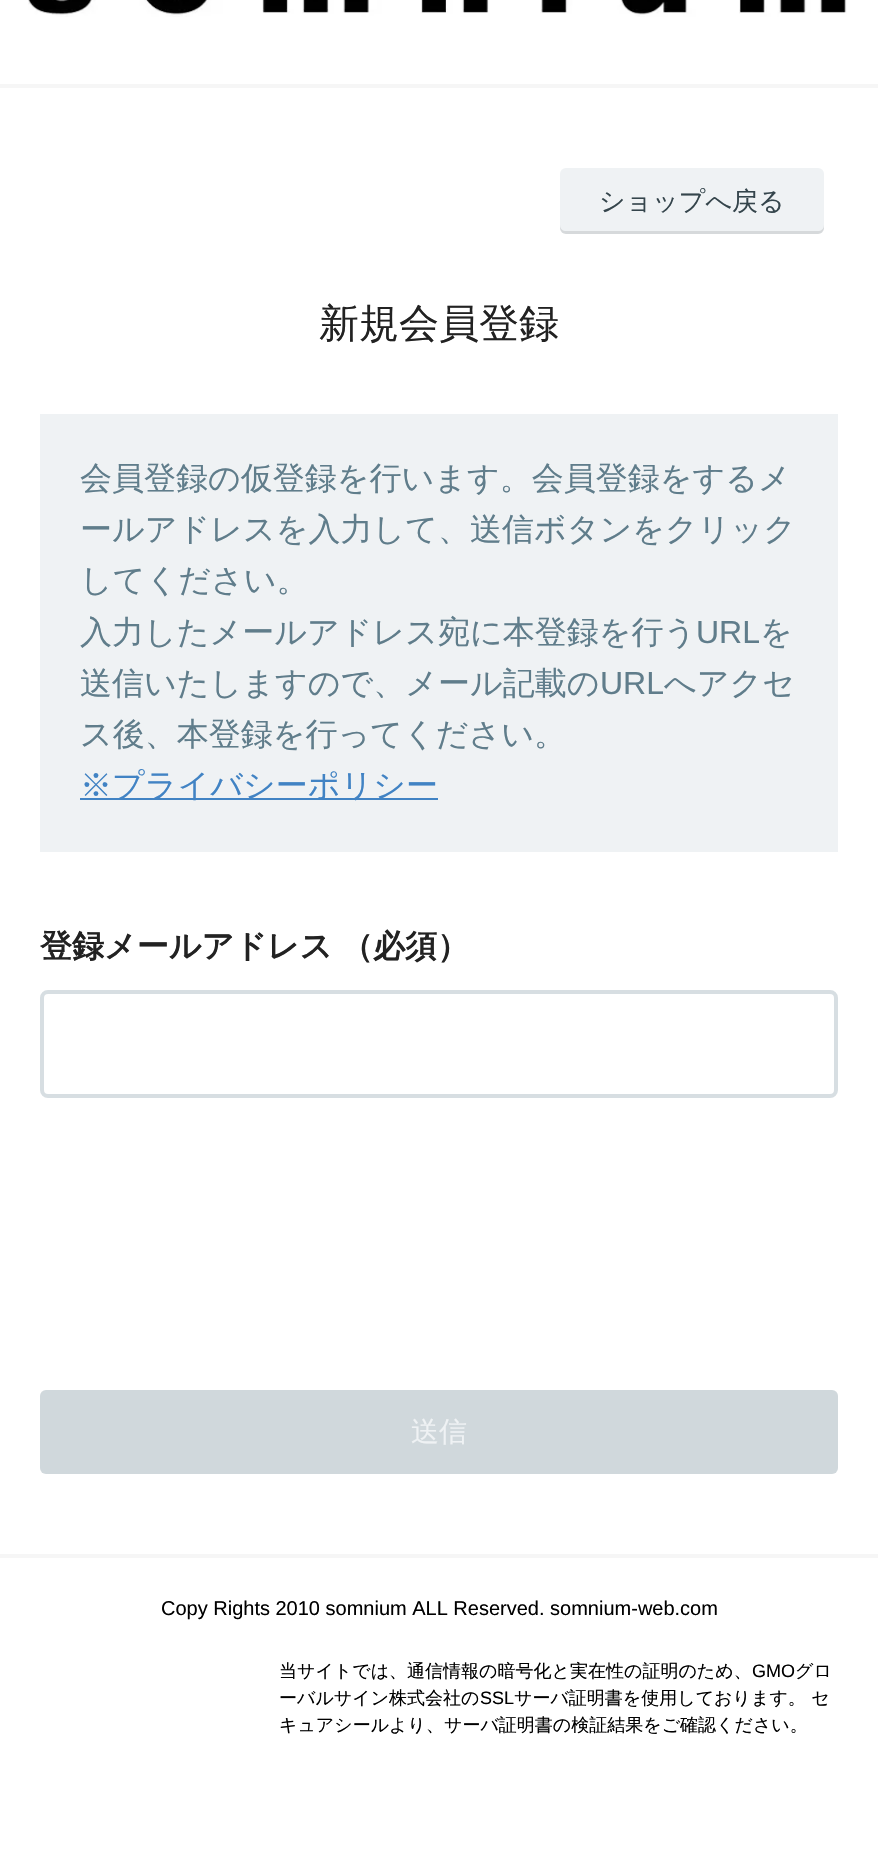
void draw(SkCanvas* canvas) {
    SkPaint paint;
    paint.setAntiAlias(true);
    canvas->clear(0xFFFFFFFF);
    canvas->drawImageRect(SkImages::DeferredFromEncodedData(SkData::MakeFromFileName("img1.png")), SkRect::MakeXYWH(28, 0, 819, 17), SkSamplingOptions());
    paint.setColor(0xFFF6F6F6);
    canvas->drawRect(SkRect::MakeXYWH(0, 84, 878, 4), paint);
    canvas->drawRect(SkRect::MakeXYWH(0, 1554, 878, 4), paint);
    paint.setColor(0xFFEFF2F4);
    canvas->drawRoundRect(SkRect::MakeXYWH(560, 168, 264, 66), 6, 6, paint);
    paint.setColor(0x1A000000);
    canvas->drawPath(SkPathBuilder().moveTo(560, 225).lineTo(560, 228).cubicTo(560, 231, 563, 234, 566, 234).lineTo(818, 234).cubicTo(821, 234, 824, 231, 824, 228).lineTo(824, 225).cubicTo(824, 229, 821, 231, 818, 231).lineTo(566, 231).cubicTo(563, 231, 560, 229, 560, 225).close().detach(), paint);
    SkFont font1(fontMgr->matchFamilyStyle("WenQuanYi Zen Hei", SkFontStyle(500, SkFontStyle::kNormal_Width, SkFontStyle::kUpright_Slant)), 26);
    font1.setSubpixel(true);
    paint.setColor(0xFF35454C);
    canvas->drawString("ショップへ戻る", 599, 210, font1, paint);
    SkFont font2(fontMgr->matchFamilyStyle("WenQuanYi Zen Hei", SkFontStyle(500, SkFontStyle::kNormal_Width, SkFontStyle::kUpright_Slant)), 40);
    font2.setSubpixel(true);
    paint.setColor(0xFF222222);
    canvas->drawString("新規会員登録", 319, 337, font2, paint);
    paint.setColor(0xFFEFF2F4);
    canvas->drawRect(SkRect::MakeXYWH(40, 414, 798, 438), paint);
    SkFont font3(fontMgr->matchFamilyStyle("WenQuanYi Zen Hei", SkFontStyle(500, SkFontStyle::kNormal_Width, SkFontStyle::kUpright_Slant)), 32);
    font3.setSubpixel(true);
    paint.setColor(0xFF607D8B);
    canvas->drawString("会員登録の仮登録を行います。会員登録をするメ", 80, 489, font3, paint);
    canvas->drawString("ールアドレスを入力して、送信ボタンをクリック", 80, 540, font3, paint);
    canvas->drawString("してください。", 80, 591, font3, paint);
    canvas->drawString("入力したメールアドレス宛に本登録を行う", 80, 643, font3, paint);
    SkFont font4(fontMgr->matchFamilyStyle("Liberation Sans", SkFontStyle::Normal()), 32);
    font4.setSubpixel(true);
    canvas->drawString("URL", 696, 643, font4, paint);
    canvas->drawString("を", 760, 643, font3, paint);
    canvas->drawString("送信いたしますので、メール記載の", 80, 694, font3, paint);
    canvas->drawString("URL", 600, 694, font4, paint);
    canvas->drawString("へアクセ", 664, 694, font3, paint);
    canvas->drawString("ス後、本登録を行ってください。", 80, 745, font3, paint);
    paint.setColor(0xFF4183C4);
    canvas->drawRect(SkRect::MakeXYWH(80, 798, 358, 2), paint);
    canvas->drawString("※プライバシーポリシー", 80, 796, font3, paint);
    SkFont font5(fontMgr->matchFamilyStyle("WenQuanYi Zen Hei", SkFontStyle::Bold()), 32);
    font5.setSubpixel(true);
    paint.setColor(0xFF222222);
    canvas->drawString("登録メールアドレス", 40, 957, font5, paint);
    canvas->drawString("（必須）", 341, 957, font5, paint);
    paint.setStyle(SkPaint::kStroke_Style);
    paint.setStrokeWidth(4);
    paint.setColor(0xFFD7DEE2);
    canvas->drawRoundRect(SkRect::MakeXYWH(42, 992, 794, 104), 6, 6, paint);
    paint.setStyle(SkPaint::kFill_Style);
    paint.setColor(0xFFD0D8DC);
    canvas->drawRoundRect(SkRect::MakeXYWH(40, 1390, 798, 84), 6, 6, paint);
    SkFont font6(fontMgr->matchFamilyStyle("WenQuanYi Zen Hei", SkFontStyle(500, SkFontStyle::kNormal_Width, SkFontStyle::kUpright_Slant)), 28);
    font6.setSubpixel(true);
    paint.setColor(0xFFEFF2F4);
    canvas->drawString("送信", 411, 1441, font6, paint);
    SkFont font7(fontMgr->matchFamilyStyle("Liberation Sans", SkFontStyle::Normal()), 20);
    font7.setSubpixel(true);
    paint.setColor(0xFF000000);
    canvas->drawString("Copy Rights 2010 somnium ALL Reserved. somnium-web.com", 161, 1615, font7, paint);
    SkFont font8(fontMgr->matchFamilyStyle("WenQuanYi Zen Hei", SkFontStyle(500, SkFontStyle::kNormal_Width, SkFontStyle::kUpright_Slant)), 18);
    font8.setSubpixel(true);
    canvas->drawString("当サイトでは、通信情報の暗号化と実在性の証明のため、", 279, 1677, font8, paint);
    SkFont font9(fontMgr->matchFamilyStyle("Liberation Sans", SkFontStyle::Normal()), 18);
    font9.setSubpixel(true);
    canvas->drawString("GMO", 752, 1677, font9, paint);
    canvas->drawString("グロ", 795, 1677, font8, paint);
    canvas->drawString("ーバルサイン株式会社の", 279, 1704, font8, paint);
    canvas->drawString("SSL", 480, 1704, font9, paint);
    canvas->drawString("サーバ証明書を使用しております。 セ", 514, 1704, font8, paint);
    canvas->drawString("キュアシールより、サーバ証明書の検証結果をご確認ください。", 279, 1731, font8, paint);
}
